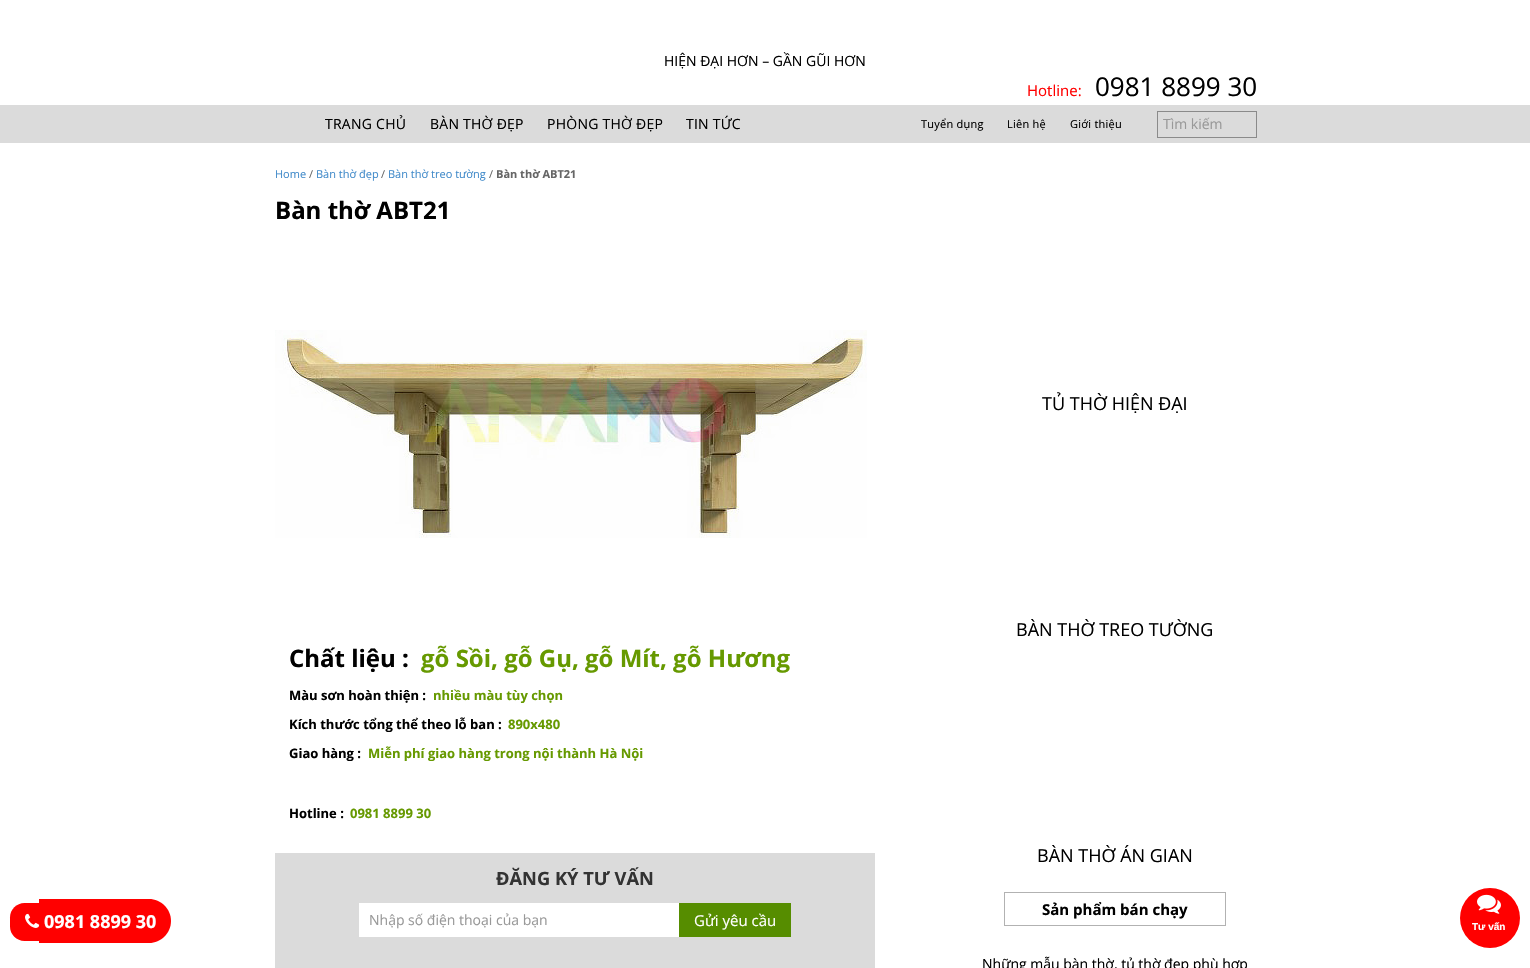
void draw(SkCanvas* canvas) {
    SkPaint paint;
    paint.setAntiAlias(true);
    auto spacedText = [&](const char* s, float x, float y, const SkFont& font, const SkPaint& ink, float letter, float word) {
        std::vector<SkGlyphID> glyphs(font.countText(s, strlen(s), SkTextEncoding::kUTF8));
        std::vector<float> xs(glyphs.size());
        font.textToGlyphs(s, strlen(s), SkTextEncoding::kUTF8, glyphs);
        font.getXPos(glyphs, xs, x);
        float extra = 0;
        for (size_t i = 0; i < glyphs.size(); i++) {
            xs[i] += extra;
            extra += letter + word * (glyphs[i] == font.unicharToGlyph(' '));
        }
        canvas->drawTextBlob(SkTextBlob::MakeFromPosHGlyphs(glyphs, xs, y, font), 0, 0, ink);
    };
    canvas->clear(0xFFFFFFFF);
    paint.setColor(0xFFFF0000);
    canvas->drawPath(SkPathBuilder().moveTo(24.5f, 903).lineTo(39, 903).lineTo(39, 941).lineTo(24.5f, 941).cubicTo(16.5f, 941, 10, 934.5f, 10, 926.5f).lineTo(10, 917.5f).cubicTo(10, 909.5f, 16.5f, 903, 24.5f, 903).close().detach(), paint);
    canvas->drawRect(SkRect::MakeXYWH(39, 899, 5, 44), paint);
    canvas->drawPath(SkPathBuilder().moveTo(44, 899).lineTo(149, 899).cubicTo(161, 899, 171, 909, 171, 921).cubicTo(171, 933, 161, 943, 149, 943).lineTo(44, 943).close().detach(), paint);
    canvas->drawImageRect(SkImages::DeferredFromEncodedData(SkData::MakeFromFileName("img1.png")), SkRect::MakeXYWH(25, 913, 15, 15), SkSamplingOptions());
    SkFont font1(fontMgr->matchFamilyStyle("Open Sans", SkFontStyle::Bold()), 18);
    font1.setSubpixel(true);
    paint.setColor(0xFFFFFFFF);
    canvas->drawString("0981 8899 30", 44, 928, font1, paint);
    SkFont font2(fontMgr->matchFamilyStyle("Open Sans", SkFontStyle::Normal()), 14);
    font2.setSubpixel(true);
    paint.setColor(0xFF000000);
    canvas->drawString("HIỆN ĐẠI HƠN – GẦN GŨI HƠN", 664, 66, font2, paint);
    SkFont font3(fontMgr->matchFamilyStyle("Open Sans", SkFontStyle::Normal()), 15);
    font3.setSubpixel(true);
    paint.setColor(0xFFFF0000);
    canvas->drawString("Hotline:", 1027, 96, font3, paint);
    SkFont font4(fontMgr->matchFamilyStyle("Open Sans", SkFontStyle::Normal()), 26);
    font4.setSubpixel(true);
    paint.setColor(0xFF000000);
    canvas->drawString("0981 8899 30", 1095, 96, font4, paint);
    paint.setColor(0xFFDBDBDB);
    canvas->drawRect(SkRect::MakeXYWH(0, 105, 1530, 38), paint);
    paint.setColor(0xFF000000);
    spacedText("TRANG CHỦ", 325, 129, font2, paint, 0.25f, 0);
    spacedText("BÀN THỜ ĐẸP", 430, 129, font2, paint, 0.25f, 0);
    spacedText("PHÒNG THỜ ĐẸP", 547, 129, font2, paint, 0.25f, 0);
    spacedText("TIN TỨC", 686, 129, font2, paint, 0.25f, 0);
    SkFont font5(fontMgr->matchFamilyStyle("Open Sans", SkFontStyle::Normal()), 11);
    font5.setSubpixel(true);
    spacedText("Tuyển dụng", 921, 128, font5, paint, 0.25f, 0);
    spacedText("Liên hệ", 1007, 128, font5, paint, 0.25f, 0);
    spacedText("Giới thiệu", 1070, 128, font5, paint, 0.25f, 0);
    paint.setStyle(SkPaint::kStroke_Style);
    paint.setStrokeWidth(1);
    paint.setColor(0xFF8A8A8A);
    canvas->drawRect(SkRect::MakeXYWH(1157.5f, 111.5f, 99, 26), paint);
    paint.setStyle(SkPaint::kFill_Style);
    paint.setColor(0xFF999999);
    canvas->drawString("Tìm kiếm", 1163, 129, font2, paint);
    paint.setColor(0xFF428BCA);
    canvas->drawString("Home", 275, 178, font5, paint);
    paint.setColor(0xFF666666);
    canvas->drawString("/", 309, 178, font5, paint);
    paint.setColor(0xFF428BCA);
    canvas->drawString("Bàn thờ đẹp", 316, 178, font5, paint);
    paint.setColor(0xFF666666);
    canvas->drawString("/", 381, 178, font5, paint);
    paint.setColor(0xFF428BCA);
    canvas->drawString("Bàn thờ treo tường", 388, 178, font5, paint);
    paint.setColor(0xFF666666);
    canvas->drawString("/", 489, 178, font5, paint);
    SkFont font6(fontMgr->matchFamilyStyle("Open Sans", SkFontStyle::Bold()), 11);
    font6.setSubpixel(true);
    canvas->drawString("Bàn thờ ABT21", 496, 178, font6, paint);
    SkFont font7(fontMgr->matchFamilyStyle("Open Sans", SkFontStyle::Bold()), 24);
    font7.setSubpixel(true);
    paint.setColor(0xFF000000);
    canvas->drawString("Bàn thờ ABT21", 275, 219, font7, paint);
    canvas->drawImageRect(SkImages::DeferredFromEncodedData(SkData::MakeFromFileName("img2.png")), SkRect::MakeXYWH(275, 330, 592, 208), SkSamplingOptions());
    canvas->drawString("Chất liệu :", 289, 667, font7, paint);
    paint.setColor(0xFF669900);
    canvas->drawString("gỗ Sồi, gỗ Gụ, gỗ Mít, gỗ Hương", 421, 667, font7, paint);
    SkFont font8(fontMgr->matchFamilyStyle("Open Sans", SkFontStyle::Bold()), 13);
    font8.setSubpixel(true);
    paint.setColor(0xFF000000);
    canvas->drawString("Màu sơn hoàn thiện :", 289, 700, font8, paint);
    paint.setColor(0xFF669900);
    canvas->drawString("nhiều màu tùy chọn", 433, 700, font8, paint);
    paint.setColor(0xFF000000);
    canvas->drawString("Kích thước tổng thể theo lỗ ban :", 289, 729, font8, paint);
    paint.setColor(0xFF669900);
    canvas->drawString("890x480", 508, 729, font8, paint);
    paint.setColor(0xFF000000);
    canvas->drawString("Giao hàng :", 289, 758, font8, paint);
    paint.setColor(0xFF669900);
    canvas->drawString("Miễn phí giao hàng trong nội thành Hà Nội", 368, 758, font8, paint);
    paint.setColor(0xFF000000);
    canvas->drawString("Hotline :", 289, 818, font8, paint);
    paint.setColor(0xFF669900);
    canvas->drawString("0981 8899 30", 350, 818, font8, paint);
    paint.setColor(0xFFDBDBDB);
    canvas->drawRect(SkRect::MakeXYWH(275, 853, 600, 115), paint);
    SkFont font9(fontMgr->matchFamilyStyle("Open Sans", SkFontStyle::Bold()), 18.25f);
    font9.setSubpixel(true);
    paint.setColor(0xFF333333);
    canvas->drawString("ĐĂNG KÝ TƯ VẤN", 496, 885, font9, paint);
    paint.setColor(0xFFFFFFFF);
    canvas->drawRect(SkRect::MakeXYWH(359, 903, 320, 34), paint);
    paint.setColor(0xFF999999);
    canvas->drawString("Nhập số điện thoại của bạn", 369, 925, font2, paint);
    paint.setColor(0xFF568D00);
    canvas->drawRect(SkRect::MakeXYWH(679, 903, 112, 34), paint);
    paint.setColor(0xFFFFFFFF);
    canvas->drawString("Gửi yêu cầu", 694, 926, font3, paint);
    SkFont font10(fontMgr->matchFamilyStyle("Open Sans", SkFontStyle::Normal()), 18);
    font10.setSubpixel(true);
    paint.setColor(0xFF000000);
    canvas->drawString("TỦ THỜ HIỆN ĐẠI", 1042, 410, font10, paint);
    canvas->drawString("BÀN THỜ TREO TƯỜNG", 1016, 636, font10, paint);
    canvas->drawString("BÀN THỜ ÁN GIAN", 1037, 862, font10, paint);
    paint.setStyle(SkPaint::kStroke_Style);
    paint.setColor(0xFFB2B2B2);
    canvas->drawRect(SkRect::MakeXYWH(1004.5f, 892.5f, 221, 33), paint);
    SkFont font11(fontMgr->matchFamilyStyle("Open Sans", SkFontStyle::Bold()), 15);
    font11.setSubpixel(true);
    paint.setStyle(SkPaint::kFill_Style);
    paint.setColor(0xFF000000);
    canvas->drawString("Sản phẩm bán chạy", 1042, 915, font11, paint);
    canvas->drawString("Những mẫu bàn thờ, tủ thờ đẹp phù hợp", 982, 969, font2, paint);
    paint.setColor(0xFFFF0000);
    canvas->drawCircle(1490, 918, 30, paint);
    canvas->drawImageRect(SkImages::DeferredFromEncodedData(SkData::MakeFromFileName("img3.png")), SkRect::MakeXYWH(1477, 894, 24, 20), SkSamplingOptions());
    SkFont font12(fontMgr->matchFamilyStyle("Liberation Sans", SkFontStyle::Bold()), 10);
    font12.setSubpixel(true);
    paint.setColor(0xFFFFFFFF);
    canvas->drawString("Tư vấn", 1472, 930, font12, paint);
}
